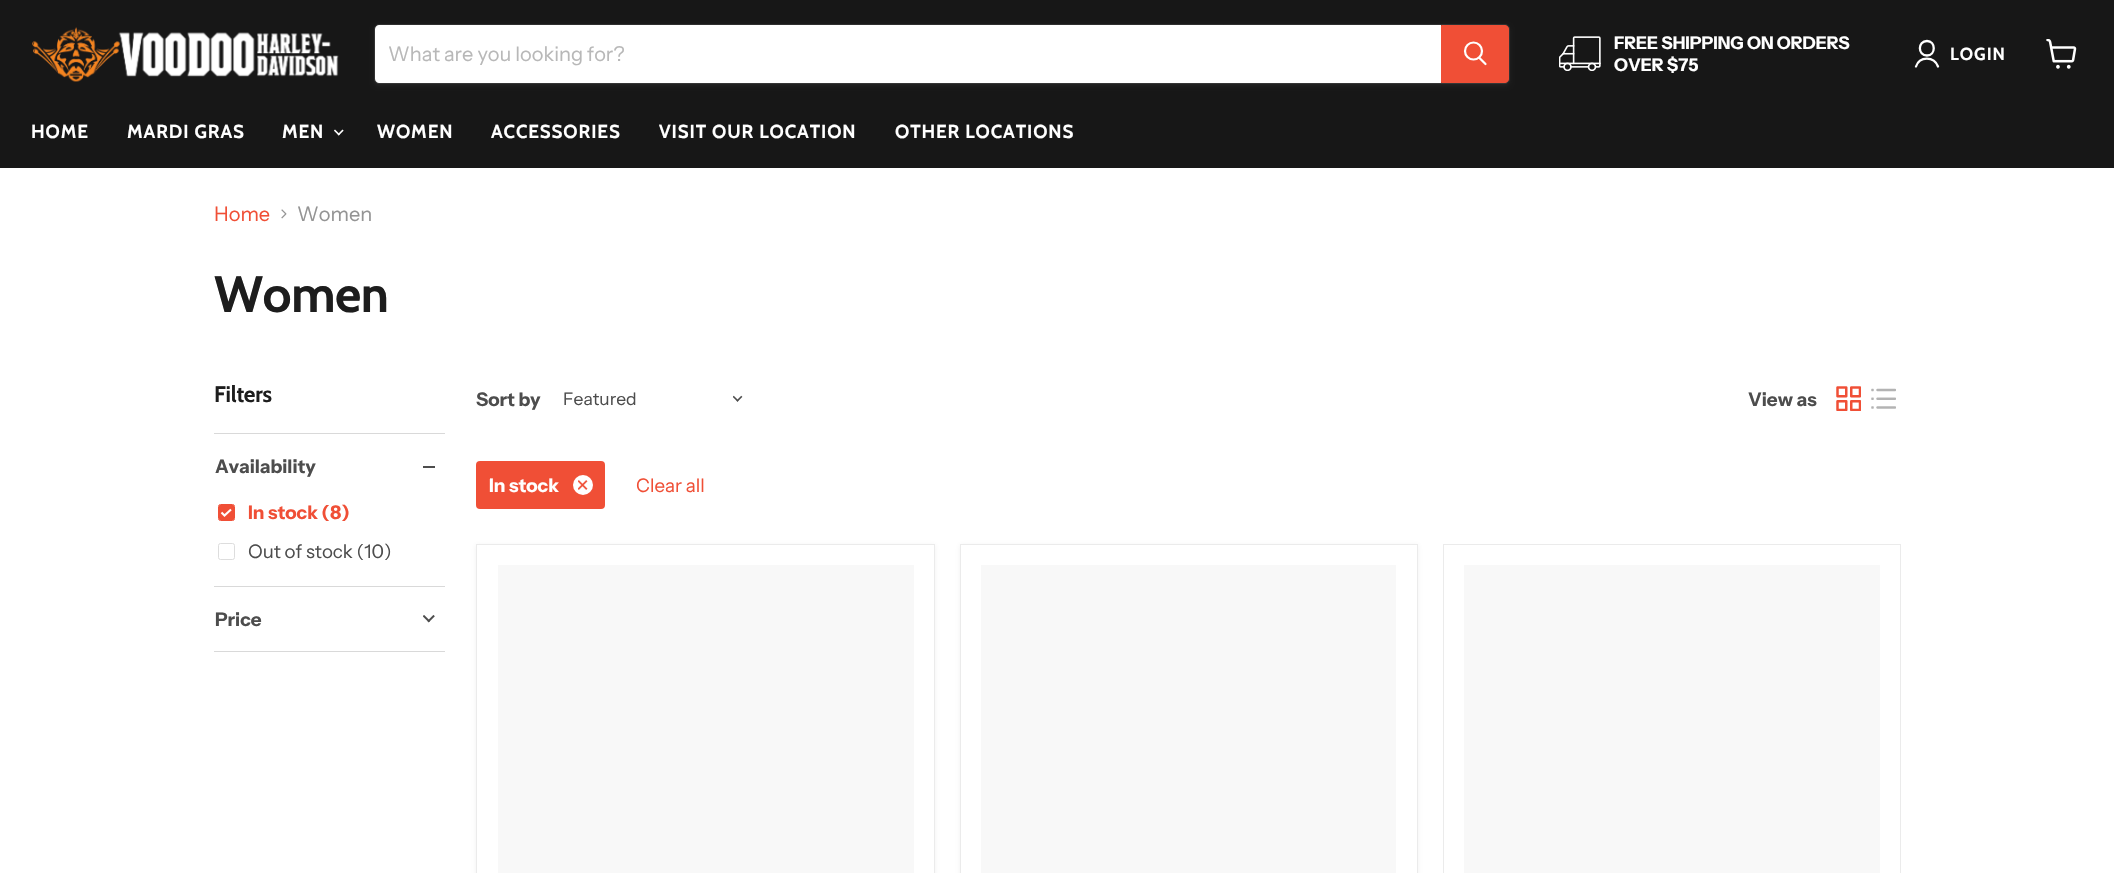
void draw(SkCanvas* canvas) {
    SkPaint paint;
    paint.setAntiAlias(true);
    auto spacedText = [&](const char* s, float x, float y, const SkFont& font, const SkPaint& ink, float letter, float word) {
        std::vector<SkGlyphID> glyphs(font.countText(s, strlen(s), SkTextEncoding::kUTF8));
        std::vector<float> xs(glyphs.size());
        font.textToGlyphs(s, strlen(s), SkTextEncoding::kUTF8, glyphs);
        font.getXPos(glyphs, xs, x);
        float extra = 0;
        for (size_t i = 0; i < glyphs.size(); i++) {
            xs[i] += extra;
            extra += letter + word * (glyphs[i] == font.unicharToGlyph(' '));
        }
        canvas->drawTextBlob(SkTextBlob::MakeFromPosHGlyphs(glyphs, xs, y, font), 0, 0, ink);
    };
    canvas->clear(0xFFFFFFFF);
    paint.setColor(0xFF171717);
    canvas->drawRect(SkRect::MakeXYWH(0, 0, 2114, 168), paint);
    canvas->drawImageRect(SkImages::DeferredFromEncodedData(SkData::MakeFromFileName("img1.png")), SkRect::MakeXYWH(32, 27, 307, 55), SkSamplingOptions());
    paint.setColor(0x1C808080);
    paint.setMaskFilter(SkMaskFilter::MakeBlur(kNormal_SkBlurStyle, 2));
    canvas->drawRoundRect(SkRect::MakeXYWH(374, 26, 1136, 60), 5, 5, paint);
    paint.setMaskFilter(nullptr);
    paint.setStyle(SkPaint::kStroke_Style);
    paint.setStrokeWidth(1);
    paint.setColor(0x33808080);
    canvas->drawRoundRect(SkRect::MakeXYWH(374.5f, 24.5f, 1135, 59), 4.5f, 4.5f, paint);
    paint.setStyle(SkPaint::kFill_Style);
    paint.setColor(0xFFFFFFFF);
    canvas->drawPath(SkPathBuilder().moveTo(379, 25).lineTo(1441, 25).lineTo(1441, 83).lineTo(379, 83).cubicTo(377, 83, 375, 81, 375, 79).lineTo(375, 29).cubicTo(375, 27, 377, 25, 379, 25).close().detach(), paint);
    SkFont font1(fontMgr->matchFamilyStyle("Instrument Sans", SkFontStyle::Normal()), 20);
    font1.setSubpixel(true);
    paint.setColor(0xFFB8B8B8);
    canvas->drawString("What are you looking for?", 388, 61, font1, paint);
    paint.setColor(0xFFF04F36);
    canvas->drawPath(SkPathBuilder().moveTo(1441.5f, 25.5f).lineTo(1505, 25.5f).cubicTo(1507, 25.5f, 1508.5f, 27, 1508.5f, 29).lineTo(1508.5f, 79).cubicTo(1508.5f, 81, 1507, 82.5f, 1505, 82.5f).lineTo(1441.5f, 82.5f).close().detach(), paint);
    paint.setStyle(SkPaint::kStroke_Style);
    canvas->drawPath(SkPathBuilder().moveTo(1441.5f, 25.5f).lineTo(1505, 25.5f).cubicTo(1507, 25.5f, 1508.5f, 27, 1508.5f, 29).lineTo(1508.5f, 79).cubicTo(1508.5f, 81, 1507, 82.5f, 1505, 82.5f).lineTo(1441.5f, 82.5f).close().detach(), paint);
    paint.setStrokeWidth(2.2f);
    paint.setStrokeCap(SkPaint::kRound_Cap);
    paint.setColor(0xFFFFFFFF);
    canvas->drawPath(SkPathBuilder().moveTo(1485.5f, 64).lineTo(1479.5f, 58).detach(), paint);
    paint.setStrokeCap(SkPaint::kButt_Cap);
    canvas->drawCircle(1473.5f, 51, 8.5f, paint);
    canvas->drawImageRect(SkImages::DeferredFromEncodedData(SkData::MakeFromFileName("img2.png")), SkRect::MakeXYWH(1559, 36, 42, 35), SkSamplingOptions());
    SkFont font2(fontMgr->matchFamilyStyle("Instrument Sans", SkFontStyle::Bold()), 17.5f);
    font2.setSubpixel(true);
    paint.setStyle(SkPaint::kFill_Style);
    canvas->drawString("FREE SHIPPING ON ORDERS", 1614, 49, font2, paint);
    canvas->drawString("OVER $75", 1614, 71, font2, paint);
    paint.setStyle(SkPaint::kStroke_Style);
    paint.setStrokeWidth(2.3f);
    paint.setStrokeCap(SkPaint::kRound_Cap);
    paint.setStrokeJoin(SkPaint::kRound_Join);
    canvas->drawPath(SkPathBuilder().moveTo(1927, 55.5f).cubicTo(1936, 55.5f, 1936, 41, 1927, 41).cubicTo(1917.5f, 41, 1917.5f, 55.5f, 1927, 55.5f).close().moveTo(1938, 66.5f).cubicTo(1934, 56, 1919.5f, 56, 1916, 66.5f).detach(), paint);
    SkFont font3(fontMgr->matchFamilyStyle("Cabin", SkFontStyle::Bold()), 17.5f);
    font3.setSubpixel(true);
    paint.setStyle(SkPaint::kFill_Style);
    spacedText("LOGIN", 1950, 60, font3, paint, 1, 0);
    canvas->drawImageRect(SkImages::DeferredFromEncodedData(SkData::MakeFromFileName("img3.png")), SkRect::MakeXYWH(2046, 39, 31, 30), SkSamplingOptions());
    SkFont font4(fontMgr->matchFamilyStyle("Cabin", SkFontStyle::Bold()), 18.75f);
    font4.setSubpixel(true);
    spacedText("HOME", 31, 138, font4, paint, 0.9f, 0);
    spacedText("MARDI GRAS", 127, 138, font4, paint, 0.9f, 0);
    spacedText("MEN", 282, 138, font4, paint, 0.9f, 0);
    canvas->drawImageRect(SkImages::DeferredFromEncodedData(SkData::MakeFromFileName("img4.png")), SkRect::MakeXYWH(334, 129, 10, 7), SkSamplingOptions());
    spacedText("WOMEN", 377, 138, font4, paint, 0.9f, 0);
    spacedText("ACCESSORIES", 491, 138, font4, paint, 0.9f, 0);
    spacedText("VISIT OUR LOCATION", 659, 138, font4, paint, 0.9f, 0);
    spacedText("OTHER LOCATIONS", 895, 138, font4, paint, 0.9f, 0);
    paint.setColor(0xFFF04F36);
    canvas->drawString("Home", 214, 221, font1, paint);
    canvas->drawImageRect(SkImages::DeferredFromEncodedData(SkData::MakeFromFileName("img5.png")), SkRect::MakeXYWH(281, 209, 6, 10), SkSamplingOptions());
    paint.setColor(0xFF949494);
    canvas->drawString("Women", 297, 221, font1, paint);
    SkFont font5(fontMgr->matchFamilyStyle("Cabin", SkFontStyle::Bold()), 51);
    font5.setSubpixel(true);
    paint.setColor(0xFF1D1D1D);
    spacedText("Women", 214, 312, font5, paint, -0.5f, 0);
    SkFont font6(fontMgr->matchFamilyStyle("Cabin", SkFontStyle::Bold()), 22.5f);
    font6.setSubpixel(true);
    spacedText("Filters", 214, 402, font6, paint, -0.25f, 0);
    paint.setColor(0xFFD9D9D9);
    canvas->drawRect(SkRect::MakeXYWH(214, 433, 231, 1), paint);
    SkFont font7(fontMgr->matchFamilyStyle("Instrument Sans", SkFontStyle::Bold()), 18.75f);
    font7.setSubpixel(true);
    paint.setColor(0xFF4D4D4D);
    canvas->drawString("Availability", 215, 473, font7, paint);
    canvas->drawRect(SkRect::MakeXYWH(423, 466, 12, 2), paint);
    paint.setColor(0xFFF04F36);
    canvas->drawRoundRect(SkRect::MakeXYWH(219, 505, 15, 15), 1, 1, paint);
    paint.setStyle(SkPaint::kStroke_Style);
    paint.setStrokeWidth(1);
    paint.setStrokeCap(SkPaint::kButt_Cap);
    paint.setStrokeJoin(SkPaint::kMiter_Join);
    canvas->drawRoundRect(SkRect::MakeXYWH(218.5f, 504.5f, 16, 16), 2, 2, paint);
    paint.setStrokeWidth(2.1f);
    paint.setColor(0xFFFFFFFF);
    canvas->drawPath(SkPathBuilder().moveTo(221.5f, 512.5f).lineTo(224.5f, 515.5f).lineTo(231, 509.5f).detach(), paint);
    paint.setStyle(SkPaint::kFill_Style);
    paint.setColor(0xFFF04F36);
    canvas->drawString("In stock (8)", 248, 519, font7, paint);
    paint.setStyle(SkPaint::kStroke_Style);
    paint.setStrokeWidth(1);
    paint.setColor(0xFFDDDDDD);
    canvas->drawRoundRect(SkRect::MakeXYWH(218.5f, 543.5f, 16, 16), 2, 2, paint);
    SkFont font8(fontMgr->matchFamilyStyle("Instrument Sans", SkFontStyle::Normal()), 18.75f);
    font8.setSubpixel(true);
    paint.setStyle(SkPaint::kFill_Style);
    paint.setColor(0xFF4D4D4D);
    canvas->drawString("Out of stock (10)", 248, 558, font8, paint);
    paint.setColor(0xFFD9D9D9);
    canvas->drawRect(SkRect::MakeXYWH(214, 586, 231, 1), paint);
    canvas->drawRect(SkRect::MakeXYWH(214, 651, 231, 1), paint);
    paint.setColor(0xFF4D4D4D);
    canvas->drawString("Price", 215, 626, font7, paint);
    canvas->drawImageRect(SkImages::DeferredFromEncodedData(SkData::MakeFromFileName("img6.png")), SkRect::MakeXYWH(423, 615, 12, 8), SkSamplingOptions());
    canvas->drawString("Sort by", 476, 406, font7, paint);
    SkFont font9(fontMgr->matchFamilyStyle("Instrument Sans", SkFontStyle::Normal()), 17.5f);
    font9.setSubpixel(true);
    canvas->drawString("Featured", 563, 405, font9, paint);
    canvas->drawImageRect(SkImages::DeferredFromEncodedData(SkData::MakeFromFileName("img7.png")), SkRect::MakeXYWH(733, 395, 10, 7), SkSamplingOptions());
    canvas->drawString("View as", 1748, 406, font7, paint);
    canvas->drawImageRect(SkImages::DeferredFromEncodedData(SkData::MakeFromFileName("img8.png")), SkRect::MakeXYWH(1836, 386, 25, 25), SkSamplingOptions());
    canvas->drawImageRect(SkImages::DeferredFromEncodedData(SkData::MakeFromFileName("img9.png")), SkRect::MakeXYWH(1871, 388, 25, 21), SkSamplingOptions());
    paint.setColor(0xFFF04F36);
    canvas->drawRoundRect(SkRect::MakeXYWH(476, 461, 129, 48), 4, 4, paint);
    paint.setColor(0xFFFFFFFF);
    canvas->drawString("In stock", 489, 492, font7, paint);
    canvas->drawCircle(583, 485, 10, paint);
    canvas->drawImageRect(SkImages::DeferredFromEncodedData(SkData::MakeFromFileName("img10.png")), SkRect::MakeXYWH(578, 480, 10, 10), SkSamplingOptions());
    paint.setColor(0xFFF04F36);
    canvas->drawString("Clear all", 636, 492, font8, paint);
    paint.setColor(0x1C808080);
    paint.setMaskFilter(SkMaskFilter::MakeBlur(kNormal_SkBlurStyle, 2.5f));
    canvas->drawRect(SkRect::MakeXYWH(476, 545, 459, 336), paint);
    paint.setMaskFilter(nullptr);
    paint.setColor(0xFFFFFFFF);
    canvas->drawRect(SkRect::MakeXYWH(476.5f, 544.5f, 458, 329), paint);
    paint.setStyle(SkPaint::kStroke_Style);
    paint.setColor(0xFFEBEBEB);
    canvas->drawRect(SkRect::MakeXYWH(476.5f, 544.5f, 458, 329), paint);
    paint.setStyle(SkPaint::kFill_Style);
    paint.setColor(0xFFF8F8F8);
    canvas->drawRect(SkRect::MakeXYWH(498, 565, 416, 308), paint);
    paint.setColor(0x1C808080);
    paint.setMaskFilter(SkMaskFilter::MakeBlur(kNormal_SkBlurStyle, 2.5f));
    canvas->drawRect(SkRect::MakeXYWH(960, 545, 458, 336), paint);
    paint.setMaskFilter(nullptr);
    paint.setColor(0xFFFFFFFF);
    canvas->drawRect(SkRect::MakeXYWH(960.5f, 544.5f, 457, 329), paint);
    paint.setStyle(SkPaint::kStroke_Style);
    paint.setColor(0xFFEBEBEB);
    canvas->drawRect(SkRect::MakeXYWH(960.5f, 544.5f, 457, 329), paint);
    paint.setStyle(SkPaint::kFill_Style);
    paint.setColor(0xFFF8F8F8);
    canvas->drawRect(SkRect::MakeXYWH(981, 565, 415, 308), paint);
    paint.setStyle(SkPaint::kStroke_Style);
    paint.setColor(0xFFEBEBEB);
    canvas->drawRect(SkRect::MakeXYWH(1443.5f, 544.5f, 457, 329), paint);
    paint.setStyle(SkPaint::kFill_Style);
    paint.setColor(0xFFF8F8F8);
    canvas->drawRect(SkRect::MakeXYWH(1464, 565, 416, 308), paint);
}
